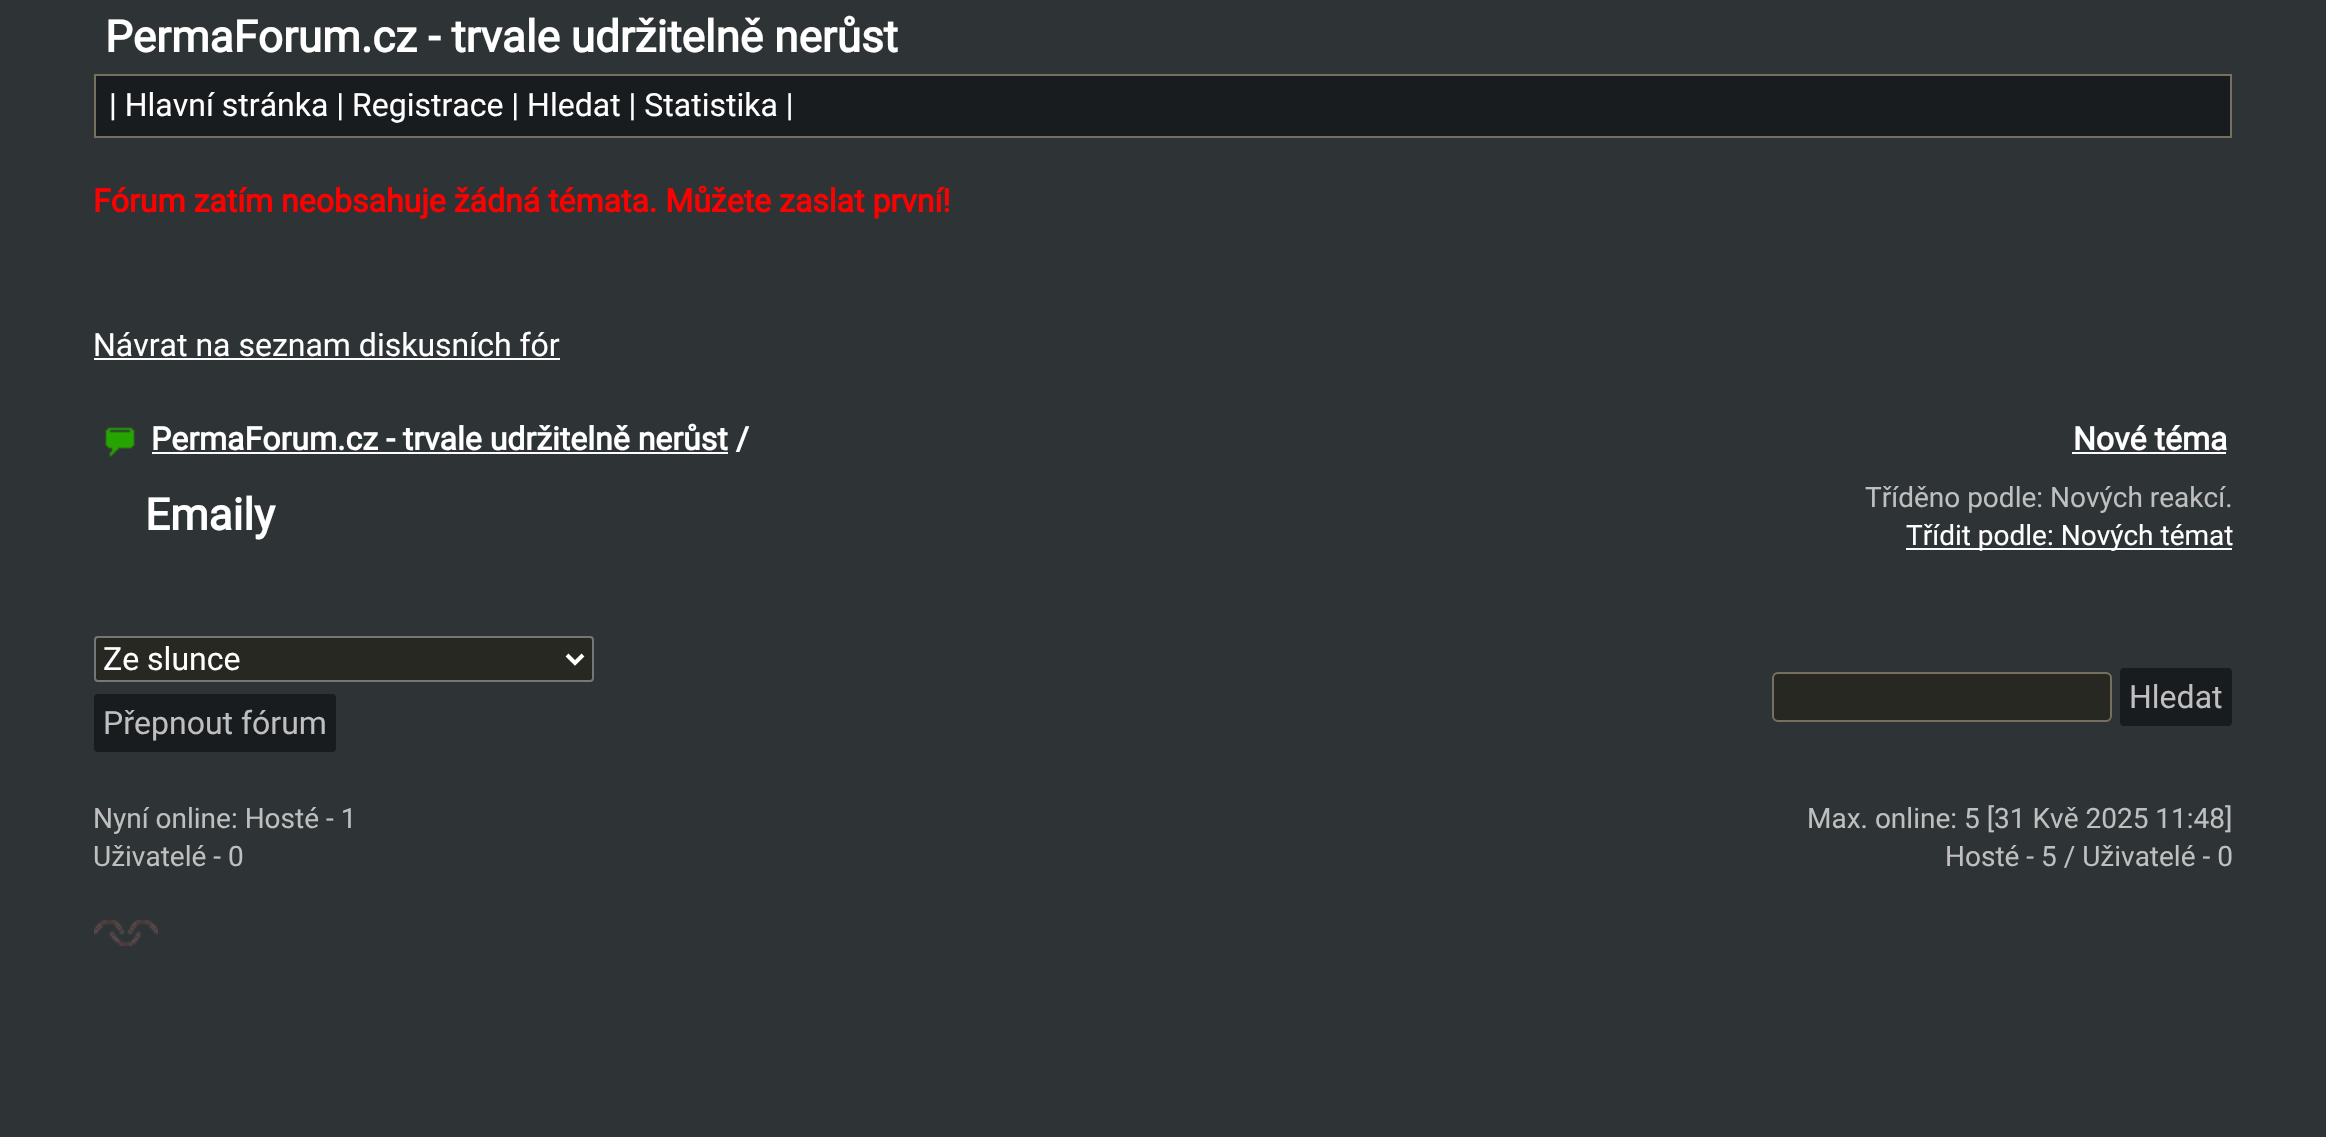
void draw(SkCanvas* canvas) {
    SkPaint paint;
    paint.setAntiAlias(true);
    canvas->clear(0xFF2E3436);
    SkFont font1(fontMgr->matchFamilyStyle("Roboto", SkFontStyle::Bold()), 44);
    font1.setSubpixel(true);
    paint.setColor(0xFFFFFFFF);
    canvas->drawString("PermaForum.cz - trvale udržitelně nerůst", 105, 52, font1, paint);
    paint.setColor(0xFF191C1E);
    canvas->drawRect(SkRect::MakeXYWH(96, 76, 2134, 60), paint);
    paint.setColor(0xFF76715E);
    canvas->drawRect(SkRect::MakeXYWH(94, 74, 2138, 2), paint);
    canvas->drawRect(SkRect::MakeXYWH(2230, 74, 2, 64), paint);
    canvas->drawRect(SkRect::MakeXYWH(94, 136, 2138, 2), paint);
    canvas->drawRect(SkRect::MakeXYWH(94, 74, 2, 64), paint);
    SkFont font2(fontMgr->matchFamilyStyle("Roboto", SkFontStyle::Normal()), 32);
    font2.setSubpixel(true);
    paint.setColor(0xFFFFFFFF);
    canvas->drawString("| Hlavní stránka | Registrace | Hledat | Statistika |", 109, 116, font2, paint);
    SkFont font3(fontMgr->matchFamilyStyle("Roboto", SkFontStyle::Bold()), 32);
    font3.setSubpixel(true);
    paint.setColor(0xFFFF0000);
    canvas->drawString("Fórum zatím neobsahuje žádná témata. Můžete zaslat první!", 93, 212, font3, paint);
    paint.setColor(0xFFFFFFFF);
    canvas->drawString("Návrat na seznam diskusních fór", 93, 356, font2, paint);
    canvas->drawRect(SkRect::MakeXYWH(94, 358, 466, 2), paint);
    canvas->drawImageRect(SkImages::DeferredFromEncodedData(SkData::MakeFromFileName("img1.png")), SkRect::MakeXYWH(105, 427, 30, 30), SkSamplingOptions());
    canvas->drawString("PermaForum.cz - trvale udržitelně nerůst /", 151, 450, font3, paint);
    canvas->drawRect(SkRect::MakeXYWH(152, 452, 576, 2), paint);
    canvas->drawString("Nové téma", 2073, 450, font3, paint);
    canvas->drawRect(SkRect::MakeXYWH(2072, 452, 154, 2), paint);
    canvas->drawString("Emaily", 145, 530, font1, paint);
    SkFont font4(fontMgr->matchFamilyStyle("Roboto", SkFontStyle::Normal()), 28);
    font4.setSubpixel(true);
    paint.setColor(0xFFBFBFBF);
    canvas->drawString("Tříděno podle: Nových reakcí.", 1865, 507, font4, paint);
    paint.setColor(0xFFFFFFFF);
    canvas->drawRect(SkRect::MakeXYWH(1906, 548, 326, 2), paint);
    canvas->drawString("Třídit podle: Nových témat", 1906, 545, font4, paint);
    paint.setColor(0xFF272822);
    canvas->drawRoundRect(SkRect::MakeXYWH(95, 637, 498, 44), 3, 3, paint);
    paint.setStyle(SkPaint::kStroke_Style);
    paint.setStrokeWidth(2);
    paint.setColor(0xFF767676);
    canvas->drawRoundRect(SkRect::MakeXYWH(95, 637, 498, 44), 3, 3, paint);
    paint.setStrokeWidth(4);
    paint.setColor(0xFFFFFFFF);
    canvas->drawPath(SkPathBuilder().moveTo(567, 655).lineTo(575, 663).lineTo(583, 655).detach(), paint);
    paint.setStyle(SkPaint::kFill_Style);
    canvas->drawString("Ze slunce", 103, 670, font2, paint);
    paint.setColor(0xFF191C1E);
    canvas->drawRoundRect(SkRect::MakeXYWH(95, 695, 240, 56), 3, 3, paint);
    paint.setStyle(SkPaint::kStroke_Style);
    paint.setStrokeWidth(2);
    canvas->drawRoundRect(SkRect::MakeXYWH(95, 695, 240, 56), 3, 3, paint);
    paint.setStyle(SkPaint::kFill_Style);
    paint.setColor(0xFFBFBFBF);
    canvas->drawString("Přepnout fórum", 103, 734, font2, paint);
    paint.setColor(0xFF272822);
    canvas->drawRoundRect(SkRect::MakeXYWH(1773, 673, 338, 48), 5, 5, paint);
    paint.setStyle(SkPaint::kStroke_Style);
    paint.setColor(0xFF76715E);
    canvas->drawRoundRect(SkRect::MakeXYWH(1773, 673, 338, 48), 5, 5, paint);
    paint.setStyle(SkPaint::kFill_Style);
    paint.setColor(0xFF191C1E);
    canvas->drawRoundRect(SkRect::MakeXYWH(2121, 669, 110, 56), 3, 3, paint);
    paint.setStyle(SkPaint::kStroke_Style);
    canvas->drawRoundRect(SkRect::MakeXYWH(2121, 669, 110, 56), 3, 3, paint);
    paint.setStyle(SkPaint::kFill_Style);
    paint.setColor(0xFFBFBFBF);
    canvas->drawString("Hledat", 2129, 708, font2, paint);
    canvas->drawString("Nyní online: Hosté - 1", 93, 828, font4, paint);
    canvas->drawString("Uživatelé - 0", 93, 866, font4, paint);
    canvas->drawString("Max. online: 5 [31 Kvě 2025 11:48]", 1807, 828, font4, paint);
    canvas->drawString("Hosté - 5 / Uživatelé - 0", 1945, 866, font4, paint);
    canvas->drawImageRect(SkImages::DeferredFromEncodedData(SkData::MakeFromFileName("img2.png")), SkRect::MakeXYWH(94, 920, 64, 26), SkSamplingOptions());
}
